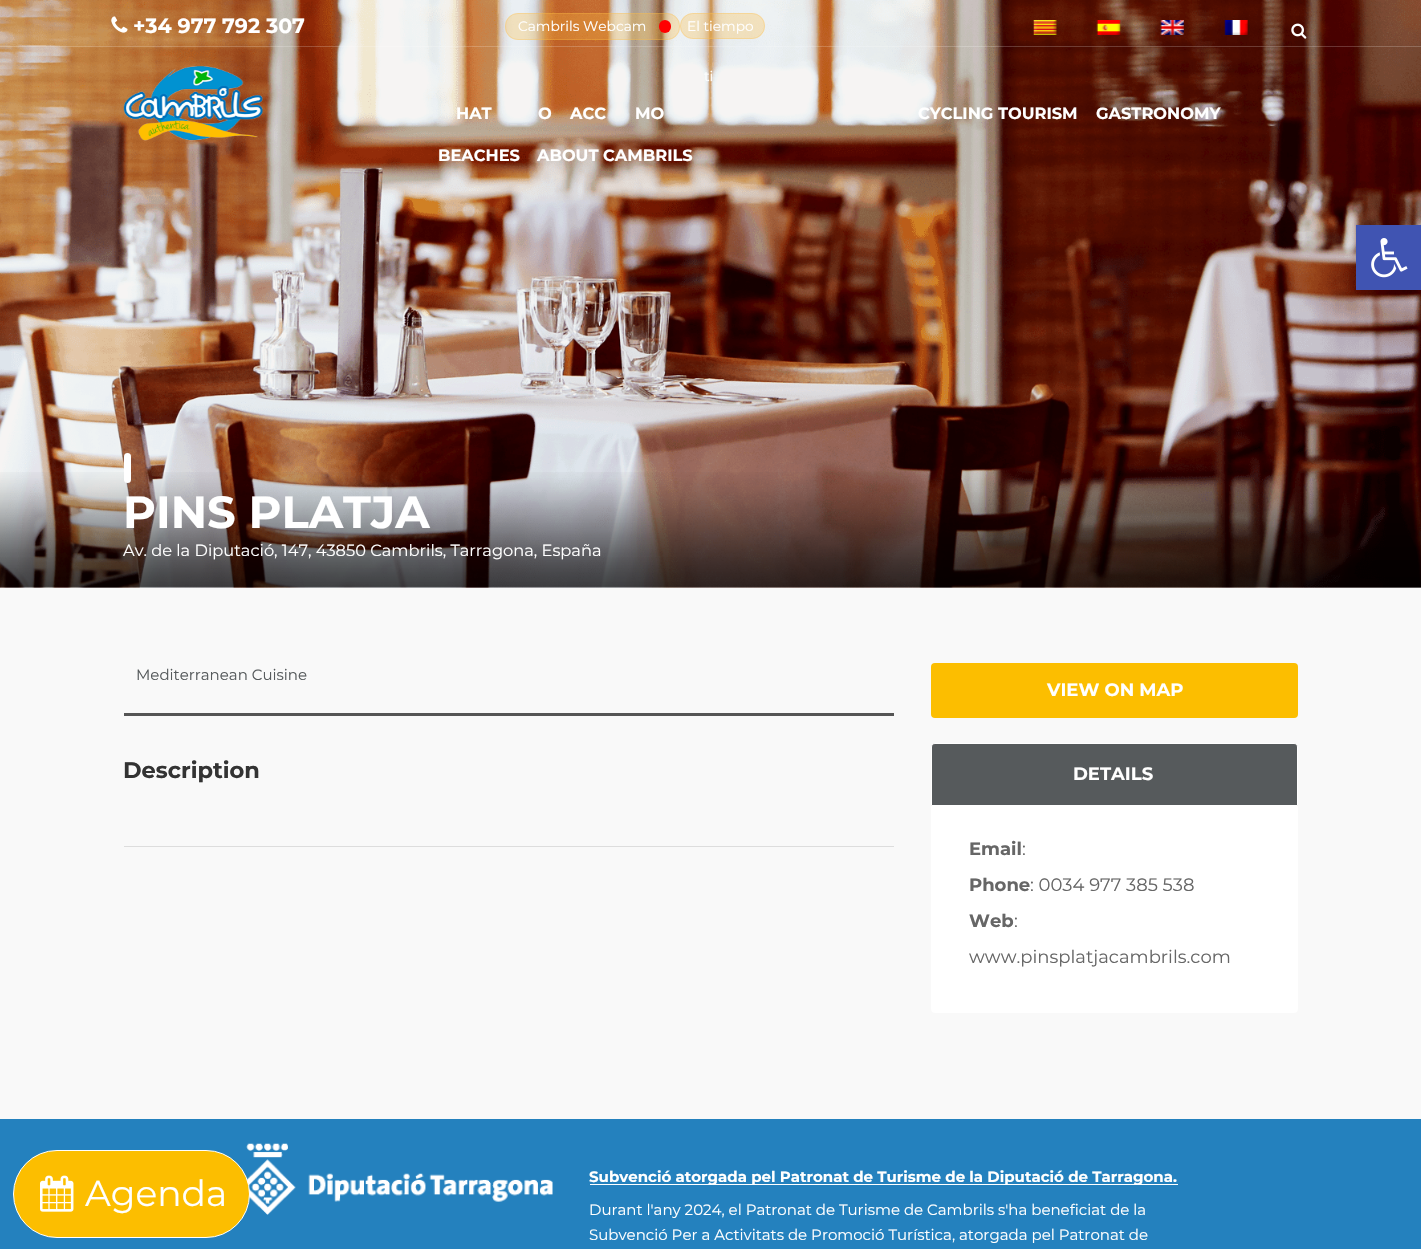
void draw(SkCanvas* canvas) {
    SkPaint paint;
    paint.setAntiAlias(true);
    canvas->clear(0xFFF9F9F9);
    canvas->drawImageRect(SkImages::DeferredFromEncodedData(SkData::MakeFromFileName("img9.png")), SkRect::MakeXYWH(0, 0, 1421, 588), SkSamplingOptions());
    paint.setColor(0x33FFFFFF);
    canvas->drawRect(SkRect::MakeXYWH(0, 46, 1421, 1), paint);
    canvas->drawImageRect(SkImages::DeferredFromEncodedData(SkData::MakeFromFileName("img1.png")), SkRect::MakeXYWH(111, 16, 17, 17), SkSamplingOptions());
    SkFont font1(fontMgr->matchFamilyStyle("Montserrat", SkFontStyle::Bold()), 20.6f);
    font1.setSubpixel(true);
    paint.setColor(0xFFFFFFFF);
    canvas->drawString("+34 977 792 307", 133, 33, font1, paint);
    paint.setColor(0x4DFFBC41);
    canvas->drawRoundRect(SkRect::MakeXYWH(505, 13, 175, 27), 13, 13, paint);
    paint.setStyle(SkPaint::kStroke_Style);
    paint.setStrokeWidth(1);
    canvas->drawRoundRect(SkRect::MakeXYWH(505.5f, 13.5f, 174, 26), 12.5f, 12.5f, paint);
    SkFont font2(fontMgr->matchFamilyStyle("Montserrat", SkFontStyle::Normal()), 13.75f);
    font2.setSubpixel(true);
    paint.setStyle(SkPaint::kFill_Style);
    paint.setColor(0xFFFFFFFF);
    canvas->drawString("Cambrils Webcam", 518, 31, font2, paint);
    paint.setColor(0xFFFF0000);
    canvas->drawRoundRect(SkRect::MakeXYWH(659, 20, 12, 13), 6, 6, paint);
    paint.setColor(0x4DFFBC41);
    canvas->drawRoundRect(SkRect::MakeXYWH(680, 13, 85, 26), 13, 13, paint);
    paint.setStyle(SkPaint::kStroke_Style);
    canvas->drawRoundRect(SkRect::MakeXYWH(680.5f, 13.5f, 84, 25), 12.5f, 12.5f, paint);
    paint.setStyle(SkPaint::kFill_Style);
    paint.setColor(0xFFFFFFFF);
    canvas->drawString("El tiempo", 687, 31, font2, paint);
    canvas->drawString("ti", 704, 81, font2, paint);
    canvas->drawImageRect(SkImages::DeferredFromEncodedData(SkData::MakeFromFileName("img2.png")), SkRect::MakeXYWH(1033, 20, 24, 15), SkSamplingOptions());
    canvas->drawImageRect(SkImages::DeferredFromEncodedData(SkData::MakeFromFileName("img3.png")), SkRect::MakeXYWH(1096, 20, 25, 15), SkSamplingOptions());
    canvas->drawImageRect(SkImages::DeferredFromEncodedData(SkData::MakeFromFileName("img4.png")), SkRect::MakeXYWH(1160, 20, 24, 15), SkSamplingOptions());
    canvas->drawImageRect(SkImages::DeferredFromEncodedData(SkData::MakeFromFileName("img5.png")), SkRect::MakeXYWH(1224, 20, 24, 15), SkSamplingOptions());
    canvas->drawImageRect(SkImages::DeferredFromEncodedData(SkData::MakeFromFileName("img6.png")), SkRect::MakeXYWH(1291, 23, 16, 16), SkSamplingOptions());
    canvas->drawImageRect(SkImages::DeferredFromEncodedData(SkData::MakeFromFileName("img7.png")), SkRect::MakeXYWH(123, 66, 140, 75), SkSamplingOptions());
    SkFont font3(fontMgr->matchFamilyStyle("Montserrat", SkFontStyle::Bold()), 16.25f);
    font3.setSubpixel(true);
    canvas->drawString("HAT", 456, 119, font3, paint);
    canvas->drawString("O", 538, 119, font3, paint);
    canvas->drawString("ACC", 570, 119, font3, paint);
    canvas->drawString("MO", 635, 119, font3, paint);
    canvas->drawString("CYCLING TOURISM", 918, 119, font3, paint);
    canvas->drawString("GASTRONOMY", 1096, 119, font3, paint);
    canvas->drawString("BEACHES", 438, 161, font3, paint);
    canvas->drawString("ABOUT CAMBRILS", 537, 161, font3, paint);
    paint.setColor(0x1A000000);
    paint.setMaskFilter(SkMaskFilter::MakeBlur(kNormal_SkBlurStyle, 6));
    canvas->drawRect(SkRect::MakeXYWH(1356, 225, 65, 65), paint);
    paint.setMaskFilter(nullptr);
    paint.setColor(0xFF4054B2);
    canvas->drawRect(SkRect::MakeXYWH(1356, 225, 65, 65), paint);
    canvas->drawImageRect(SkImages::DeferredFromEncodedData(SkData::MakeFromFileName("img8.png")), SkRect::MakeXYWH(1371, 238, 37, 40), SkSamplingOptions());
    canvas->drawImageRect(SkImages::DeferredFromEncodedData(SkData::MakeFromFileName("img10.png")), SkRect::MakeXYWH(0, 472, 1421, 116), SkSamplingOptions());
    paint.setColor(0xFFFFFFFF);
    canvas->drawRoundRect(SkRect::MakeXYWH(124, 453, 7, 30), 3.5f, 3.5f, paint);
    SkFont font4(fontMgr->matchFamilyStyle("Montserrat", SkFontStyle::Bold()), 45);
    font4.setSubpixel(true);
    canvas->drawString("PINS PLATJA", 123, 528, font4, paint);
    SkFont font5(fontMgr->matchFamilyStyle("Montserrat", SkFontStyle::Normal()), 16.25f);
    font5.setSubpixel(true);
    canvas->drawString("Av. de la Diputació, 147, 43850 Cambrils, Tarragona, España", 123, 556, font5, paint);
    paint.setColor(0xFF555555);
    canvas->drawRect(SkRect::MakeXYWH(124, 713, 770, 3), paint);
    SkFont font6(fontMgr->matchFamilyStyle("Montserrat", SkFontStyle::Normal()), 15);
    font6.setSubpixel(true);
    paint.setColor(0xFF565A5C);
    canvas->drawString("Mediterranean Cuisine", 136, 680, font6, paint);
    SkFont font7(fontMgr->matchFamilyStyle("Montserrat", SkFontStyle::Bold()), 22.5f);
    font7.setSubpixel(true);
    paint.setColor(0xFF333333);
    canvas->drawString("Description", 123, 778, font7, paint);
    paint.setColor(0xFFDDDDDD);
    canvas->drawRect(SkRect::MakeXYWH(124, 846, 770, 1), paint);
    paint.setColor(0xFFFCBE00);
    canvas->drawRoundRect(SkRect::MakeXYWH(931, 663, 367, 55), 4, 4, paint);
    SkFont font8(fontMgr->matchFamilyStyle("Montserrat", SkFontStyle::Bold()), 18);
    font8.setSubpixel(true);
    paint.setColor(0xFFFFFFFF);
    canvas->drawString("VIEW ON MAP", 1047, 696, font8, paint);
    canvas->drawRoundRect(SkRect::MakeXYWH(931, 743, 367, 270), 4, 4, paint);
    paint.setColor(0xFF565A5C);
    canvas->drawPath(SkPathBuilder().moveTo(935, 743.5f).lineTo(1294, 743.5f).cubicTo(1296, 743.5f, 1297.5f, 745, 1297.5f, 747).lineTo(1297.5f, 805.5f).lineTo(931.5f, 805.5f).lineTo(931.5f, 747).cubicTo(931.5f, 745, 933, 743.5f, 935, 743.5f).close().detach(), paint);
    paint.setStyle(SkPaint::kStroke_Style);
    paint.setColor(0xFFFFFFFF);
    canvas->drawPath(SkPathBuilder().moveTo(935, 743.5f).lineTo(1294, 743.5f).cubicTo(1296, 743.5f, 1297.5f, 745, 1297.5f, 747).lineTo(1297.5f, 805.5f).lineTo(931.5f, 805.5f).lineTo(931.5f, 747).cubicTo(931.5f, 745, 933, 743.5f, 935, 743.5f).close().detach(), paint);
    paint.setStyle(SkPaint::kFill_Style);
    canvas->drawString("DETAILS", 1073, 780, font8, paint);
    paint.setColor(0xFF666666);
    canvas->drawString("Email", 969, 855, font8, paint);
    SkFont font9(fontMgr->matchFamilyStyle("Montserrat", SkFontStyle::Normal()), 18);
    font9.setSubpixel(true);
    canvas->drawString(":", 1022, 855, font9, paint);
    canvas->drawString("Phone", 969, 891, font8, paint);
    canvas->drawString(": 0034 977 385 538", 1030, 891, font9, paint);
    canvas->drawString("Web", 969, 927, font8, paint);
    canvas->drawString(":", 1014, 927, font9, paint);
    canvas->drawString("www.pinsplatjacambrils.com", 969, 963, font9, paint);
    paint.setColor(0xFF2481BE);
    canvas->drawRect(SkRect::MakeXYWH(0, 1119, 1421, 130), paint);
    canvas->drawImageRect(SkImages::DeferredFromEncodedData(SkData::MakeFromFileName("img12.png")), SkRect::MakeXYWH(246, 1143, 307, 72), SkSamplingOptions());
    paint.setColor(0xFFFCBE00);
    canvas->drawRoundRect(SkRect::MakeXYWH(13.5f, 1150.5f, 236, 87), 43.5f, 43.5f, paint);
    paint.setStyle(SkPaint::kStroke_Style);
    paint.setColor(0xFFFFFFFF);
    canvas->drawRoundRect(SkRect::MakeXYWH(13.5f, 1150.5f, 236, 87), 43.5f, 43.5f, paint);
    canvas->drawImageRect(SkImages::DeferredFromEncodedData(SkData::MakeFromFileName("img11.png")), SkRect::MakeXYWH(40, 1175, 34, 37), SkSamplingOptions());
    SkFont font10(fontMgr->matchFamilyStyle("Montserrat", SkFontStyle::Normal()), 36);
    font10.setSubpixel(true);
    paint.setStyle(SkPaint::kFill_Style);
    canvas->drawString("Agenda", 85, 1206, font10, paint);
    canvas->drawRect(SkRect::MakeXYWH(590, 1184, 588, 1), paint);
    SkFont font11(fontMgr->matchFamilyStyle("Montserrat", SkFontStyle::Bold()), 15);
    font11.setSubpixel(true);
    canvas->drawString("Subvenció atorgada pel Patronat de Turisme de la Diputació de Tarragona.", 589, 1182, font11, paint);
    canvas->drawString("Durant l'any 2024, el Patronat de Turisme de Cambrils s'ha beneficiat de la", 589, 1215, font6, paint);
    canvas->drawString("Subvenció Per a Activitats de Promoció Turística, atorgada pel Patronat de", 589, 1240, font6, paint);
}
